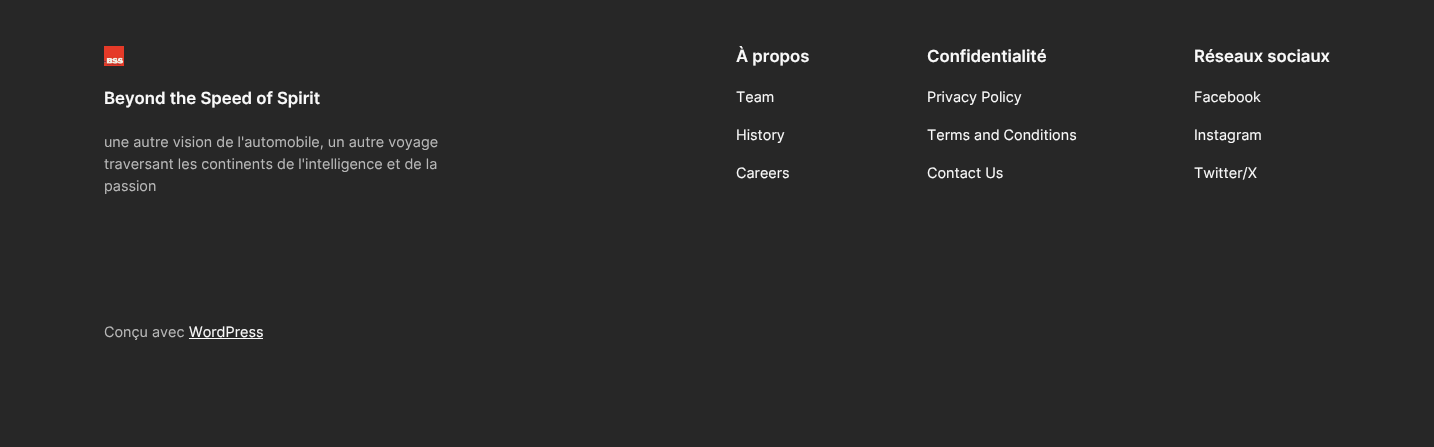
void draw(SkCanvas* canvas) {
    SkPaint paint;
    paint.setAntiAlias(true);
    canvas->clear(0xFF272727);
    canvas->drawImageRect(SkImages::DeferredFromEncodedData(SkData::MakeFromFileName("img1.png")), SkRect::MakeXYWH(104, 46, 20, 20), SkSamplingOptions());
    SkFont font1(fontMgr->matchFamilyStyle("Inter", SkFontStyle(600, SkFontStyle::kNormal_Width, SkFontStyle::kUpright_Slant)), 16.75f);
    font1.setSubpixel(true);
    paint.setColor(0xFFF9F9F9);
    canvas->drawString("Beyond the Speed of Spirit", 104, 104, font1, paint);
    SkFont font2(fontMgr->matchFamilyStyle("Inter", SkFontStyle::Normal()), 14.4f);
    font2.setSubpixel(true);
    paint.setColor(0xFFB7B7B7);
    canvas->drawString("une autre vision de l'automobile, un autre voyage", 104, 147, font2, paint);
    canvas->drawString("traversant les continents de l'intelligence et de la", 104, 169, font2, paint);
    canvas->drawString("passion", 104, 191, font2, paint);
    paint.setColor(0xFFF9F9F9);
    canvas->drawString("À propos", 736, 62, font1, paint);
    canvas->drawString("Team", 736, 102, font2, paint);
    canvas->drawString("History", 736, 140, font2, paint);
    canvas->drawString("Careers", 736, 178, font2, paint);
    canvas->drawString("Confidentialité", 927, 62, font1, paint);
    canvas->drawString("Privacy Policy", 927, 102, font2, paint);
    canvas->drawString("Terms and Conditions", 927, 140, font2, paint);
    canvas->drawString("Contact Us", 927, 178, font2, paint);
    canvas->drawString("Réseaux sociaux", 1194, 62, font1, paint);
    canvas->drawString("Facebook", 1194, 102, font2, paint);
    canvas->drawString("Instagram", 1194, 140, font2, paint);
    canvas->drawString("Twitter/X", 1194, 178, font2, paint);
    paint.setColor(0xFFB7B7B7);
    canvas->drawString("Conçu avec", 104, 337, font2, paint);
    paint.setColor(0xFFF9F9F9);
    canvas->drawString("WordPress", 189, 337, font2, paint);
    canvas->drawRect(SkRect::MakeXYWH(189, 338, 74, 1), paint);
}
